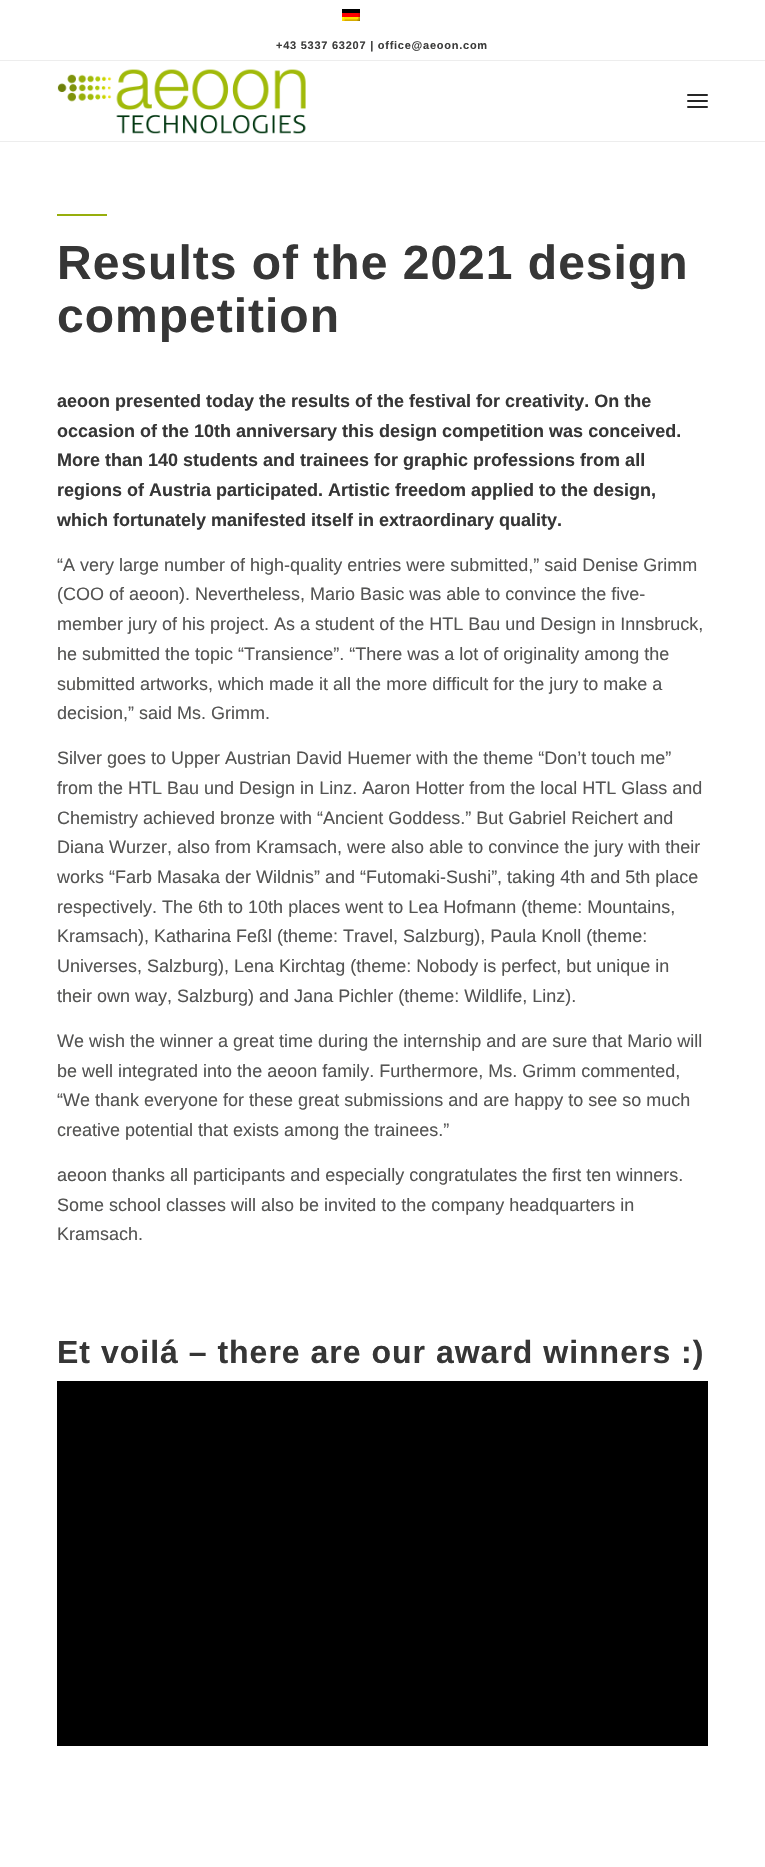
void draw(SkCanvas* canvas) {
    SkPaint paint;
    paint.setAntiAlias(true);
    auto spacedText = [&](const char* s, float x, float y, const SkFont& font, const SkPaint& ink, float letter, float word) {
        std::vector<SkGlyphID> glyphs(font.countText(s, strlen(s), SkTextEncoding::kUTF8));
        std::vector<float> xs(glyphs.size());
        font.textToGlyphs(s, strlen(s), SkTextEncoding::kUTF8, glyphs);
        font.getXPos(glyphs, xs, x);
        float extra = 0;
        for (size_t i = 0; i < glyphs.size(); i++) {
            xs[i] += extra;
            extra += letter + word * (glyphs[i] == font.unicharToGlyph(' '));
        }
        canvas->drawTextBlob(SkTextBlob::MakeFromPosHGlyphs(glyphs, xs, y, font), 0, 0, ink);
    };
    canvas->clear(0xFFFFFFFF);
    paint.setColor(0xFFEDEDED);
    canvas->drawRect(SkRect::MakeXYWH(0, 60, 765, 1), paint);
    canvas->drawImageRect(SkImages::DeferredFromEncodedData(SkData::MakeFromFileName("img1.png")), SkRect::MakeXYWH(342, 9, 18, 12), SkSamplingOptions());
    SkFont font1(fontMgr->matchFamilyStyle("Liberation Sans", SkFontStyle::Bold()), 11);
    font1.setSubpixel(true);
    paint.setColor(0xFF3C3C3B);
    spacedText("+43 5337 63207 | office@aeoon.com", 276, 49, font1, paint, 0.75f, 0);
    paint.setColor(0xFFEDEDED);
    canvas->drawRect(SkRect::MakeXYWH(0, 141, 765, 1), paint);
    canvas->drawImageRect(SkImages::DeferredFromEncodedData(SkData::MakeFromFileName("img2.png")), SkRect::MakeXYWH(57, 69, 249, 65), SkSamplingOptions());
    paint.setColor(0xFF262626);
    canvas->drawRoundRect(SkRect::MakeXYWH(687, 100, 21, 2), 1, 1, paint);
    canvas->drawRoundRect(SkRect::MakeXYWH(687, 94, 21, 2), 1, 1, paint);
    canvas->drawRoundRect(SkRect::MakeXYWH(687, 106, 21, 2), 1, 1, paint);
    paint.setColor(0xFF97AE0D);
    canvas->drawRect(SkRect::MakeXYWH(57, 214, 50, 2), paint);
    SkFont font2(fontMgr->matchFamilyStyle("Liberation Sans", SkFontStyle::Bold()), 48);
    font2.setSubpixel(true);
    paint.setColor(0xFF363636);
    spacedText("Results of the 2021 design", 57, 279, font2, paint, 1, 0);
    spacedText("competition", 57, 332, font2, paint, 1, 0);
    SkFont font3(fontMgr->matchFamilyStyle("Liberation Sans", SkFontStyle::Bold()), 18);
    font3.setSubpixel(true);
    canvas->drawString("aeoon presented today the results of the festival for creativity. On the", 57, 407, font3, paint);
    canvas->drawString("occasion of the 10th anniversary this design competition was conceived.", 57, 437, font3, paint);
    canvas->drawString("More than 140 students and trainees for graphic professions from all", 57, 466, font3, paint);
    canvas->drawString("regions of Austria participated. Artistic freedom applied to the design,", 57, 496, font3, paint);
    canvas->drawString("which fortunately manifested itself in extraordinary quality.", 57, 526, font3, paint);
    SkFont font4(fontMgr->matchFamilyStyle("Liberation Sans", SkFontStyle::Normal()), 18);
    font4.setSubpixel(true);
    paint.setColor(0xFF545453);
    canvas->drawString("“A very large number of high-quality entries were submitted,” said Denise Grimm", 57, 571, font4, paint);
    canvas->drawString("(COO of aeoon). Nevertheless, Mario Basic was able to convince the five-", 57, 600, font4, paint);
    canvas->drawString("member jury of his project. As a student of the HTL Bau und Design in Innsbruck,", 57, 630, font4, paint);
    canvas->drawString("he submitted the topic “Transience”. “There was a lot of originality among the", 57, 660, font4, paint);
    canvas->drawString("submitted artworks, which made it all the more difficult for the jury to make a", 57, 690, font4, paint);
    canvas->drawString("decision,” said Ms. Grimm.", 57, 719, font4, paint);
    canvas->drawString("Silver goes to Upper Austrian David Huemer with the theme “Don’t touch me”", 57, 764, font4, paint);
    canvas->drawString("from the HTL Bau und Design in Linz. Aaron Hotter from the local HTL Glass and", 57, 794, font4, paint);
    canvas->drawString("Chemistry achieved bronze with “Ancient Goddess.” But Gabriel Reichert and", 57, 824, font4, paint);
    canvas->drawString("Diana Wurzer, also from Kramsach, were also able to convince the jury with their", 57, 853, font4, paint);
    canvas->drawString("works “Farb Masaka der Wildnis” and “Futomaki-Sushi”, taking 4th and 5th place", 57, 883, font4, paint);
    canvas->drawString("respectively. The 6th to 10th places went to Lea Hofmann (theme: Mountains,", 57, 913, font4, paint);
    canvas->drawString("Kramsach), Katharina Feßl (theme: Travel, Salzburg), Paula Knoll (theme:", 57, 942, font4, paint);
    canvas->drawString("Universes, Salzburg), Lena Kirchtag (theme: Nobody is perfect, but unique in", 57, 972, font4, paint);
    canvas->drawString("their own way, Salzburg) and Jana Pichler (theme: Wildlife, Linz).", 57, 1002, font4, paint);
    canvas->drawString("We wish the winner a great time during the internship and are sure that Mario will", 57, 1047, font4, paint);
    canvas->drawString("be well integrated into the aeoon family. Furthermore, Ms. Grimm commented,", 57, 1077, font4, paint);
    canvas->drawString("“We thank everyone for these great submissions and are happy to see so much", 57, 1106, font4, paint);
    canvas->drawString("creative potential that exists among the trainees.”", 57, 1136, font4, paint);
    canvas->drawString("aeoon thanks all participants and especially congratulates the first ten winners.", 57, 1181, font4, paint);
    canvas->drawString("Some school classes will also be invited to the company headquarters in", 57, 1211, font4, paint);
    canvas->drawString("Kramsach.", 57, 1240, font4, paint);
    SkFont font5(fontMgr->matchFamilyStyle("Liberation Sans", SkFontStyle::Bold()), 32);
    font5.setSubpixel(true);
    paint.setColor(0xFF363636);
    spacedText("Et voilá – there are our award winners :)", 57, 1363, font5, paint, 1, 0);
    paint.setColor(0xFF000000);
    canvas->drawRect(SkRect::MakeXYWH(57, 1381, 651, 365), paint);
}
